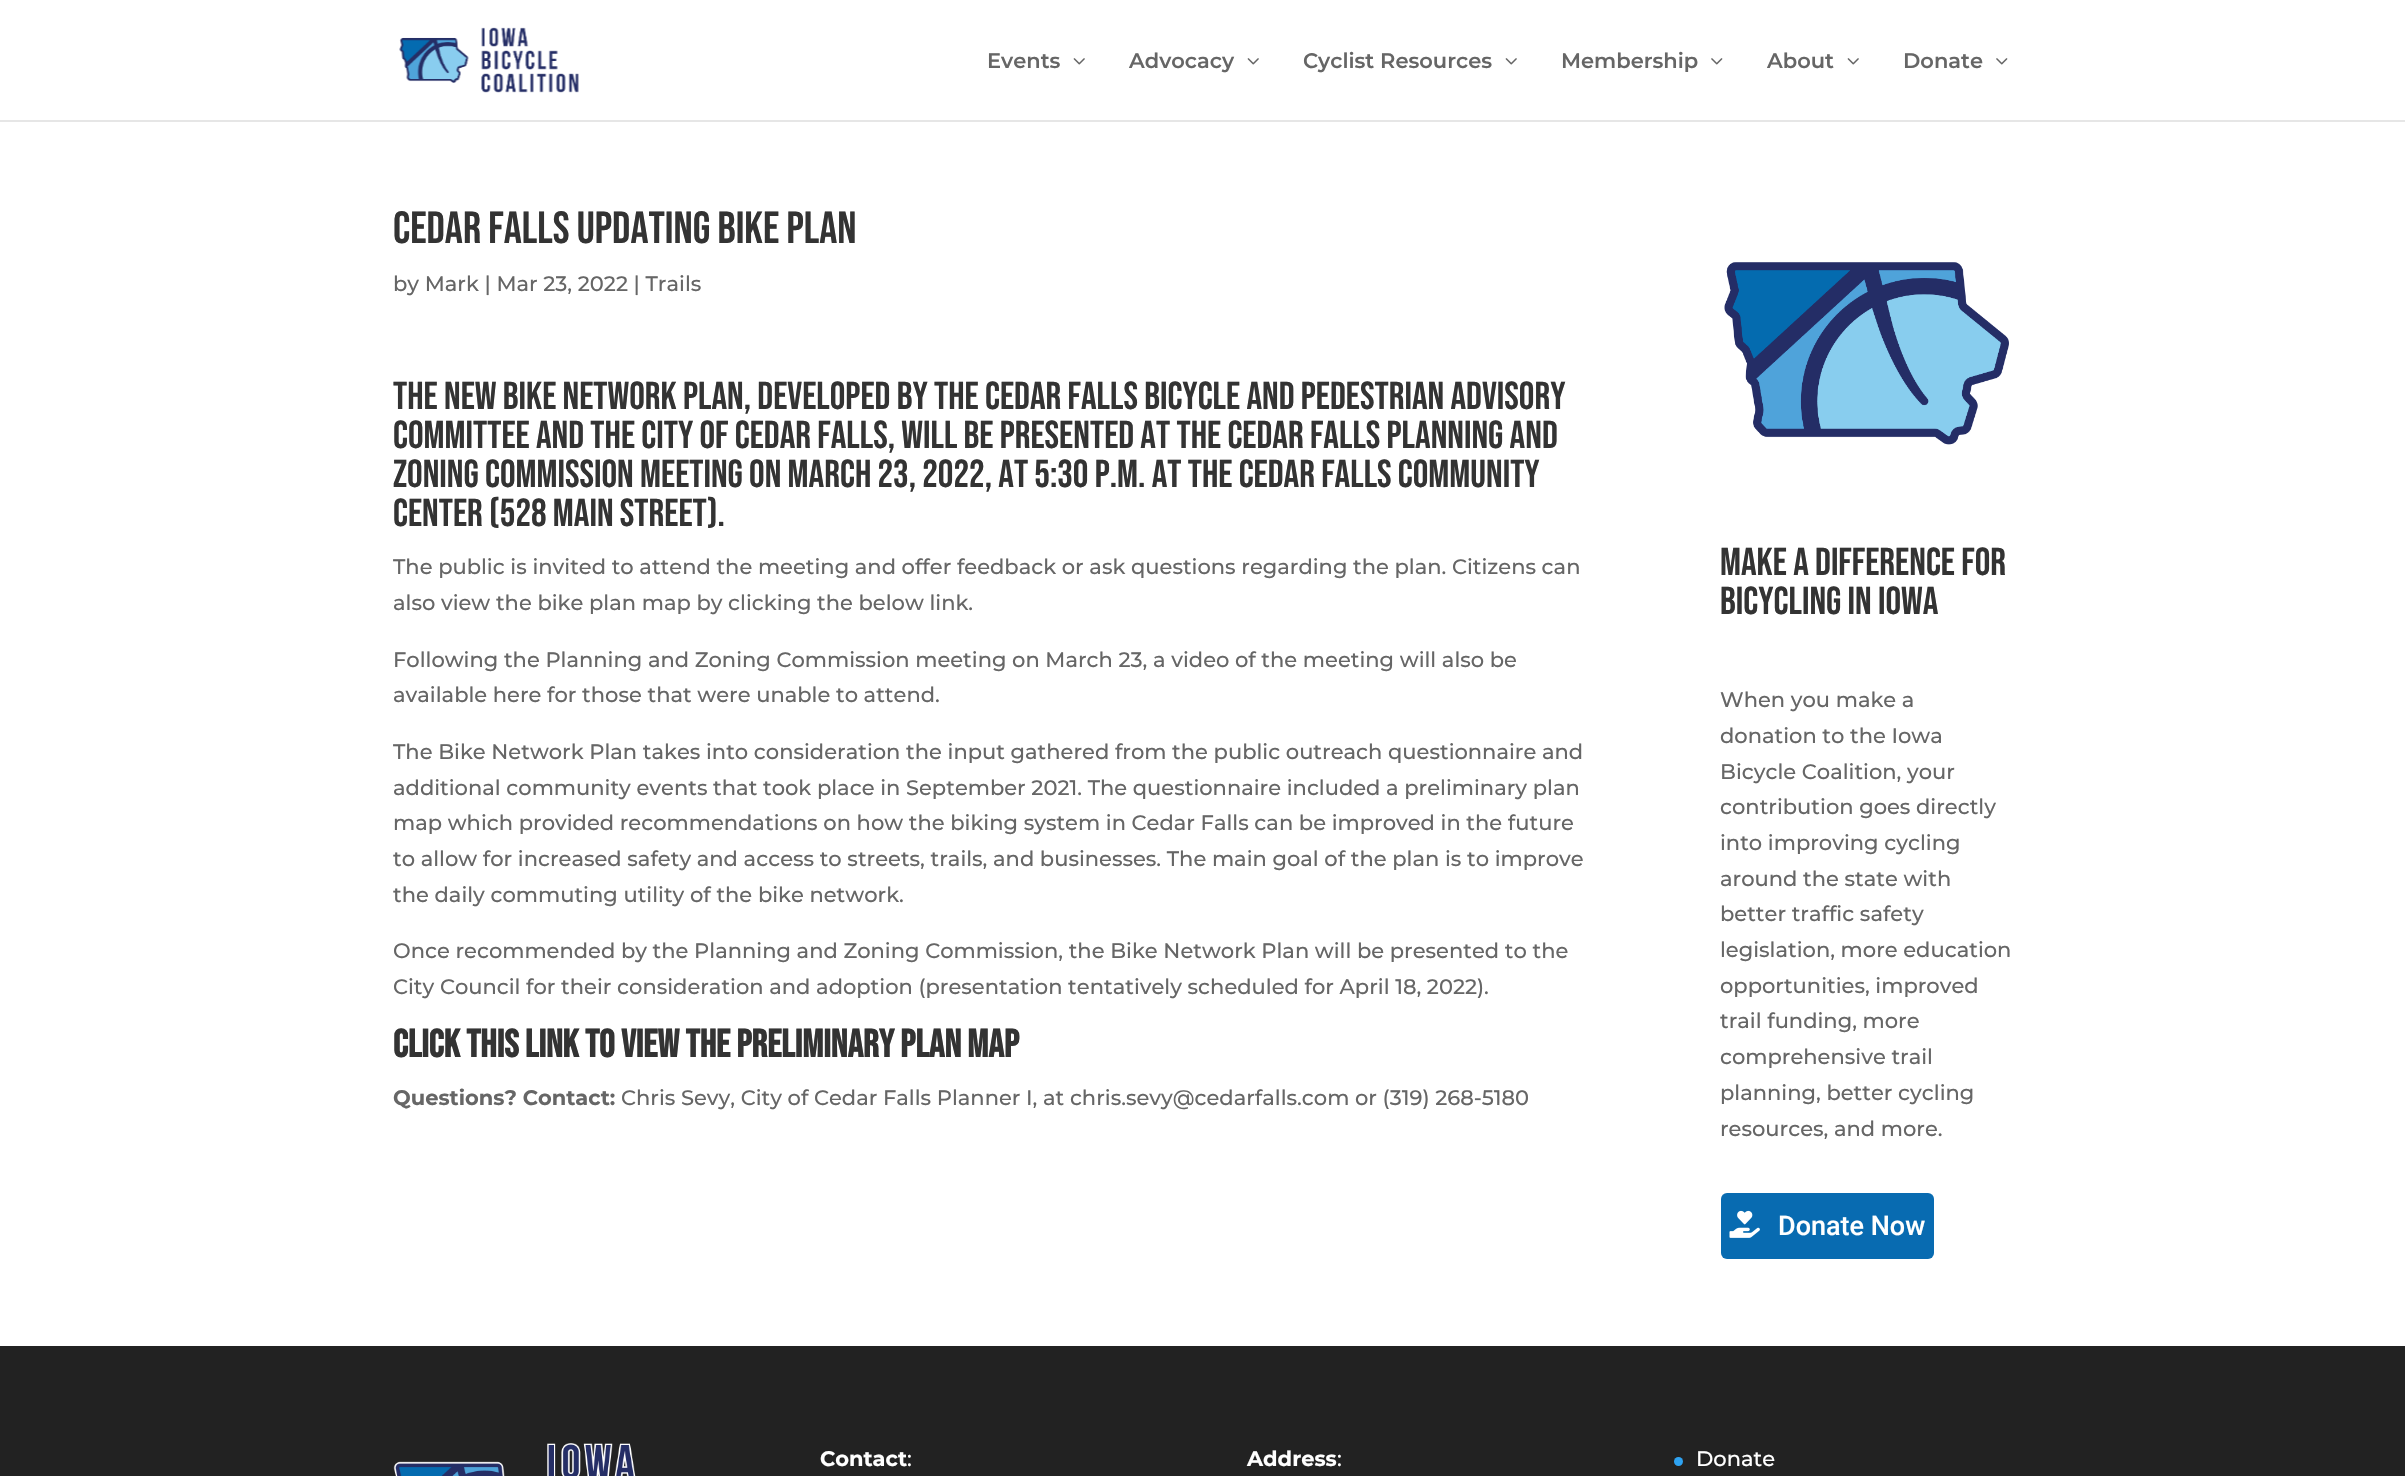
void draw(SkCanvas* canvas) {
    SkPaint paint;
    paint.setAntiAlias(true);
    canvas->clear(0xFFFFFFFF);
    paint.setColor(0xFFE6E6E6);
    canvas->drawRect(SkRect::MakeXYWH(0, 120, 2405, 2), paint);
    canvas->drawImageRect(SkImages::DeferredFromEncodedData(SkData::MakeFromFileName("img1.png")), SkRect::MakeXYWH(399, 27, 180, 66), SkSamplingOptions());
    SkFont font1(fontMgr->matchFamilyStyle("Montserrat", SkFontStyle(600, SkFontStyle::kNormal_Width, SkFontStyle::kUpright_Slant)), 21);
    font1.setSubpixel(true);
    paint.setColor(0xFF666666);
    canvas->drawString("Events", 987, 68, font1, paint);
    canvas->drawImageRect(SkImages::DeferredFromEncodedData(SkData::MakeFromFileName("img2.png")), SkRect::MakeXYWH(1073, 58, 12, 7), SkSamplingOptions());
    canvas->drawString("Advocacy", 1129, 68, font1, paint);
    canvas->drawImageRect(SkImages::DeferredFromEncodedData(SkData::MakeFromFileName("img2.png")), SkRect::MakeXYWH(1247, 58, 12, 7), SkSamplingOptions());
    canvas->drawString("Cyclist Resources", 1303, 68, font1, paint);
    canvas->drawImageRect(SkImages::DeferredFromEncodedData(SkData::MakeFromFileName("img2.png")), SkRect::MakeXYWH(1505, 58, 12, 7), SkSamplingOptions());
    canvas->drawString("Membership", 1561, 68, font1, paint);
    canvas->drawImageRect(SkImages::DeferredFromEncodedData(SkData::MakeFromFileName("img3.png")), SkRect::MakeXYWH(1711, 58, 12, 7), SkSamplingOptions());
    canvas->drawString("About", 1767, 68, font1, paint);
    canvas->drawImageRect(SkImages::DeferredFromEncodedData(SkData::MakeFromFileName("img2.png")), SkRect::MakeXYWH(1847, 58, 12, 7), SkSamplingOptions());
    canvas->drawString("Donate", 1903, 68, font1, paint);
    canvas->drawImageRect(SkImages::DeferredFromEncodedData(SkData::MakeFromFileName("img3.png")), SkRect::MakeXYWH(1996, 58, 12, 7), SkSamplingOptions());
    SkFont font2(fontMgr->matchFamilyStyle("Bebas Neue", SkFontStyle::Normal()), 45);
    font2.setSubpixel(true);
    paint.setColor(0xFF333333);
    canvas->drawString("Cedar Falls Updating Bike Plan", 393, 243, font2, paint);
    SkFont font3(fontMgr->matchFamilyStyle("Montserrat", SkFontStyle(500, SkFontStyle::kNormal_Width, SkFontStyle::kUpright_Slant)), 21);
    font3.setSubpixel(true);
    paint.setColor(0xFF666666);
    canvas->drawString("by Mark | Mar 23, 2022 | Trails", 393, 291, font3, paint);
    SkFont font4(fontMgr->matchFamilyStyle("Bebas Neue", SkFontStyle::Normal()), 39);
    font4.setSubpixel(true);
    paint.setColor(0xFF333333);
    canvas->drawString("The new Bike Network Plan, developed by the Cedar Falls Bicycle and Pedestrian Advisory", 393, 409, font4, paint);
    canvas->drawString("Committee and the City of Cedar Falls, will be presented at the Cedar Falls Planning and", 393, 448, font4, paint);
    canvas->drawString("Zoning Commission meeting on March 23, 2022, at 5:30 p.m. at the Cedar Falls Community", 393, 487, font4, paint);
    canvas->drawString("Center (528 Main Street).", 393, 526, font4, paint);
    paint.setColor(0xFF666666);
    canvas->drawString("The public is invited to attend the meeting and offer feedback or ask questions regarding the plan. Citizens can", 393, 574, font3, paint);
    canvas->drawString("also view the bike plan map by clicking the below link.", 393, 610, font3, paint);
    canvas->drawString("Following the Planning and Zoning Commission meeting on March 23, a video of the meeting will also be", 393, 667, font3, paint);
    canvas->drawString("available here for those that were unable to attend.", 393, 702, font3, paint);
    canvas->drawString("The Bike Network Plan takes into consideration the input gathered from the public outreach questionnaire and", 393, 759, font3, paint);
    canvas->drawString("additional community events that took place in September 2021. The questionnaire included a preliminary plan", 393, 795, font3, paint);
    canvas->drawString("map which provided recommendations on how the biking system in Cedar Falls can be improved in the future", 393, 830, font3, paint);
    canvas->drawString("to allow for increased safety and access to streets, trails, and businesses. The main goal of the plan is to improve", 393, 866, font3, paint);
    canvas->drawString("the daily commuting utility of the bike network.", 393, 902, font3, paint);
    canvas->drawString("Once recommended by the Planning and Zoning Commission, the Bike Network Plan will be presented to the", 393, 958, font3, paint);
    canvas->drawString("City Council for their consideration and adoption (presentation tentatively scheduled for April 18, 2022).", 393, 994, font3, paint);
    SkFont font5(fontMgr->matchFamilyStyle("Bebas Neue", SkFontStyle::Bold()), 39);
    font5.setSubpixel(true);
    paint.setColor(0xFF333333);
    canvas->drawString("Click this link to view the preliminary plan map", 393, 1057, font5, paint);
    SkFont font6(fontMgr->matchFamilyStyle("Montserrat", SkFontStyle::Bold()), 21);
    font6.setSubpixel(true);
    paint.setColor(0xFF666666);
    canvas->drawString("Questions? Contact:", 393, 1105, font6, paint);
    canvas->drawString("Chris Sevy, City of Cedar Falls Planner I, at chris.sevy@cedarfalls.com or (319) 268-5180", 621, 1105, font3, paint);
    canvas->drawImageRect(SkImages::DeferredFromEncodedData(SkData::MakeFromFileName("img4.png")), SkRect::MakeXYWH(1724, 262, 285, 183), SkSamplingOptions());
    paint.setColor(0xFF333333);
    canvas->drawString("Make a difference for", 1720, 575, font4, paint);
    canvas->drawString("bicycling in Iowa", 1720, 614, font4, paint);
    paint.setColor(0xFF666666);
    canvas->drawString("When you make a", 1720, 707, font3, paint);
    canvas->drawString("donation to the Iowa", 1720, 743, font3, paint);
    canvas->drawString("Bicycle Coalition, your", 1720, 779, font3, paint);
    canvas->drawString("contribution goes directly", 1720, 814, font3, paint);
    canvas->drawString("into improving cycling", 1720, 850, font3, paint);
    canvas->drawString("around the state with", 1720, 886, font3, paint);
    canvas->drawString("better traffic safety", 1720, 921, font3, paint);
    canvas->drawString("legislation, more education", 1720, 957, font3, paint);
    canvas->drawString("opportunities, improved", 1720, 993, font3, paint);
    canvas->drawString("trail funding, more", 1720, 1028, font3, paint);
    canvas->drawString("comprehensive trail", 1720, 1064, font3, paint);
    canvas->drawString("planning, better cycling", 1720, 1100, font3, paint);
    canvas->drawString("resources, and more.", 1720, 1136, font3, paint);
    paint.setColor(0xFF086BB1);
    canvas->drawRoundRect(SkRect::MakeXYWH(1721, 1193, 213, 66), 6, 6, paint);
    canvas->drawImageRect(SkImages::DeferredFromEncodedData(SkData::MakeFromFileName("img5.png")), SkRect::MakeXYWH(1729, 1210, 31, 28), SkSamplingOptions());
    SkFont font7(fontMgr->matchFamilyStyle("Roboto", SkFontStyle(500, SkFontStyle::kNormal_Width, SkFontStyle::kUpright_Slant)), 27);
    font7.setSubpixel(true);
    paint.setColor(0xFFFFFFFF);
    canvas->drawString("Donate Now", 1778, 1235, font7, paint);
    paint.setColor(0xFF222222);
    canvas->drawRect(SkRect::MakeXYWH(0, 1346, 2405, 130), paint);
    canvas->drawImageRect(SkImages::DeferredFromEncodedData(SkData::MakeFromFileName("img6.png")), SkRect::MakeXYWH(393, 1443, 243, 33), SkSamplingOptions());
    paint.setColor(0xFFFFFFFF);
    canvas->drawString("Contact", 820, 1466, font6, paint);
    canvas->drawString(":", 907, 1466, font3, paint);
    canvas->drawString("Address", 1247, 1466, font6, paint);
    canvas->drawString(":", 1337, 1466, font3, paint);
    paint.setColor(0xFF2EA3F2);
    canvas->drawCircle(1678.5f, 1461.5f, 4.5f, paint);
    paint.setColor(0xFFFFFFFF);
    canvas->drawString("Donate", 1696, 1466, font3, paint);
}
